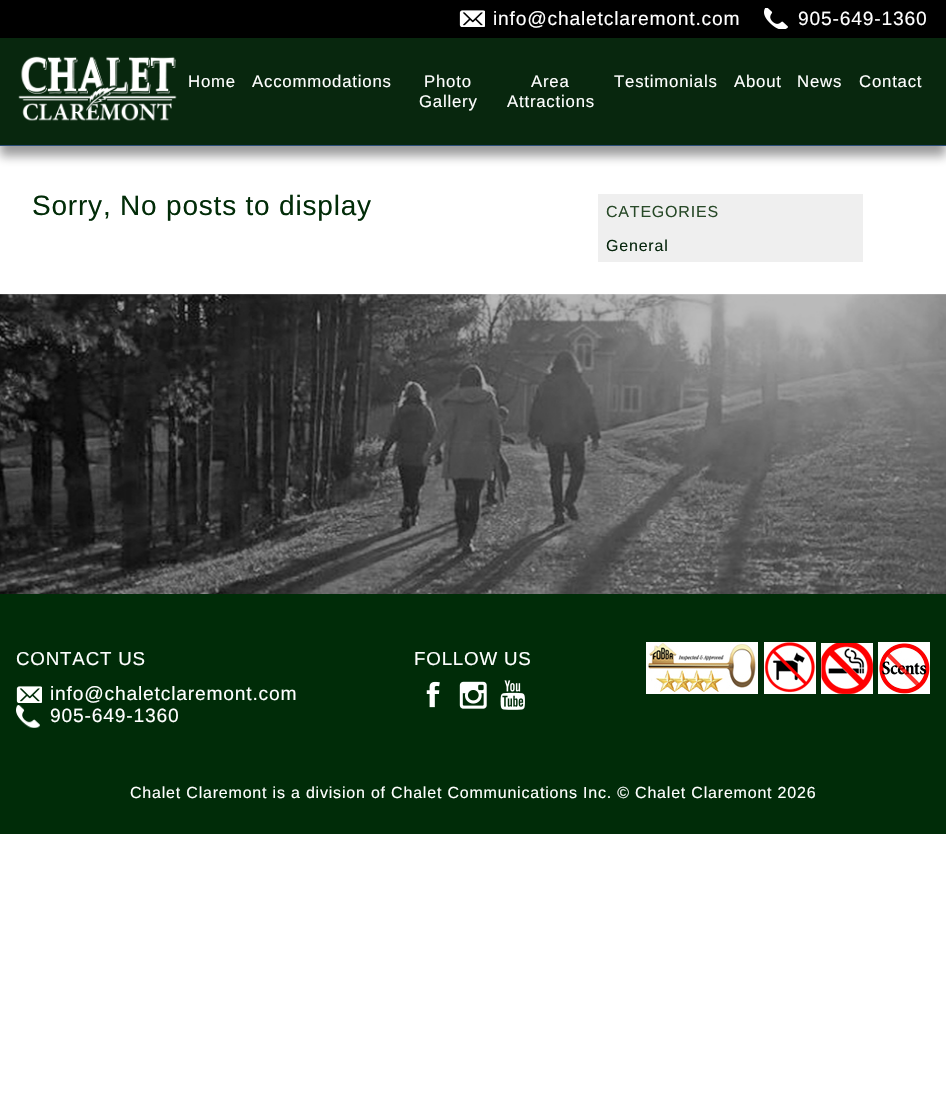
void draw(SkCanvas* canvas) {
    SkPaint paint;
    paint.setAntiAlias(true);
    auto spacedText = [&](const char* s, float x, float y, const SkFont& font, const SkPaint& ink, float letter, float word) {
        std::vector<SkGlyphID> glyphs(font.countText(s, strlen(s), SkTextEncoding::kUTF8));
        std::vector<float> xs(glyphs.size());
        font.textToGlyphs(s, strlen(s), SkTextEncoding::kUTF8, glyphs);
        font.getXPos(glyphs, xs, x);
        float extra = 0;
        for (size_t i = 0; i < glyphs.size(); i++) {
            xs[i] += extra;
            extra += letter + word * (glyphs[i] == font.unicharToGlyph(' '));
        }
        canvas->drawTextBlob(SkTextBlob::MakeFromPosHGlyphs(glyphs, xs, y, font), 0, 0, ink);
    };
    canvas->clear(0xFFFFFFFF);
    paint.setColor(0x66080809);
    paint.setMaskFilter(SkMaskFilter::MakeBlur(kNormal_SkBlurStyle, 5));
    canvas->drawRect(SkRect::MakeXYWH(0, 48, 946, 108), paint);
    paint.setMaskFilter(nullptr);
    paint.setColor(0xFF000000);
    canvas->drawRect(SkRect::MakeXYWH(0, 0, 946, 38), paint);
    canvas->drawImageRect(SkImages::DeferredFromEncodedData(SkData::MakeFromFileName("img1.png")), SkRect::MakeXYWH(459, 10, 26, 17), SkSamplingOptions());
    SkFont font1(fontMgr->matchFamilyStyle("Liberation Sans", SkFontStyle::Normal()), 19.25f);
    font1.setSubpixel(true);
    paint.setColor(0xFFFFFFFF);
    spacedText("info@chaletclaremont.com", 493, 25, font1, paint, 0.8f, 0);
    canvas->drawImageRect(SkImages::DeferredFromEncodedData(SkData::MakeFromFileName("img2.png")), SkRect::MakeXYWH(764, 8, 24, 21), SkSamplingOptions());
    spacedText("905-649-1360", 798, 25, font1, paint, 0.8f, 0);
    paint.setColor(0xFF08270E);
    canvas->drawRect(SkRect::MakeXYWH(0, 38, 946, 107), paint);
    paint.setColor(0xFF2C4E77);
    canvas->drawRect(SkRect::MakeXYWH(0, 145, 946, 1), paint);
    canvas->drawImageRect(SkImages::DeferredFromEncodedData(SkData::MakeFromFileName("img3.png")), SkRect::MakeXYWH(18, 56, 159, 65), SkSamplingOptions());
    SkFont font2(fontMgr->matchFamilyStyle("Liberation Sans", SkFontStyle::Normal()), 16.75f);
    font2.setSubpixel(true);
    paint.setColor(0xFFFFFFFF);
    spacedText("Home", 188, 87, font2, paint, 0.8f, 0);
    spacedText("Accommodations", 252, 87, font2, paint, 0.8f, 0);
    spacedText("Photo", 424, 87, font2, paint, 0.8f, 0);
    spacedText("Gallery", 419, 107, font2, paint, 0.8f, 0);
    spacedText("Area", 531, 87, font2, paint, 0.8f, 0);
    spacedText("Attractions", 507, 107, font2, paint, 0.8f, 0);
    spacedText("Testimonials", 614, 87, font2, paint, 0.8f, 0);
    spacedText("About", 734, 87, font2, paint, 0.8f, 0);
    spacedText("News", 797, 87, font2, paint, 0.8f, 0);
    spacedText("Contact", 859, 87, font2, paint, 0.8f, 0);
    SkFont font3(fontMgr->matchFamilyStyle("Liberation Sans", SkFontStyle::Normal()), 28);
    font3.setSubpixel(true);
    paint.setColor(0xFF022C08);
    spacedText("Sorry, No posts to display", 32, 215, font3, paint, 0.8f, 0);
    paint.setColor(0xFFEFEFEF);
    canvas->drawRect(SkRect::MakeXYWH(598, 194, 265, 68), paint);
    SkFont font4(fontMgr->matchFamilyStyle("Liberation Sans", SkFontStyle::Normal()), 16);
    font4.setSubpixel(true);
    paint.setColor(0xFF294A29);
    spacedText("CATEGORIES", 606, 217, font4, paint, 0.8f, 0);
    paint.setColor(0xFF07260D);
    spacedText("General", 606, 251, font4, paint, 0.8f, 0);
    canvas->drawImageRect(SkImages::DeferredFromEncodedData(SkData::MakeFromFileName("img4.png")), SkRect::MakeXYWH(0, 294, 946, 300), SkSamplingOptions());
    paint.setColor(0xFF002C08);
    canvas->drawRect(SkRect::MakeXYWH(0, 594, 946, 240), paint);
    SkFont font5(fontMgr->matchFamilyStyle("Liberation Sans", SkFontStyle::Normal()), 18.75f);
    font5.setSubpixel(true);
    paint.setColor(0xFFFFFFFF);
    spacedText("CONTACT US", 16, 665, font5, paint, 0.8f, 0);
    canvas->drawImageRect(SkImages::DeferredFromEncodedData(SkData::MakeFromFileName("img5.png")), SkRect::MakeXYWH(16, 686, 26, 17), SkSamplingOptions());
    spacedText("info@chaletclaremont.com", 50, 700, font1, paint, 0.8f, 0);
    canvas->drawImageRect(SkImages::DeferredFromEncodedData(SkData::MakeFromFileName("img6.png")), SkRect::MakeXYWH(16, 705, 24, 23), SkSamplingOptions());
    spacedText("905-649-1360", 50, 722, font1, paint, 0.8f, 0);
    spacedText("FOLLOW US", 414, 665, font5, paint, 0.8f, 0);
    canvas->drawImageRect(SkImages::DeferredFromEncodedData(SkData::MakeFromFileName("img7.png")), SkRect::MakeXYWH(426, 681, 14, 27), SkSamplingOptions());
    canvas->drawImageRect(SkImages::DeferredFromEncodedData(SkData::MakeFromFileName("img8.png")), SkRect::MakeXYWH(459, 681, 28, 28), SkSamplingOptions());
    canvas->drawImageRect(SkImages::DeferredFromEncodedData(SkData::MakeFromFileName("img9.png")), SkRect::MakeXYWH(500, 680, 25, 30), SkSamplingOptions());
    canvas->drawImageRect(SkImages::DeferredFromEncodedData(SkData::MakeFromFileName("img10.png")), SkRect::MakeXYWH(646, 642, 112, 52), SkSamplingOptions());
    canvas->drawImageRect(SkImages::DeferredFromEncodedData(SkData::MakeFromFileName("img11.png")), SkRect::MakeXYWH(764, 642, 52, 52), SkSamplingOptions());
    canvas->drawImageRect(SkImages::DeferredFromEncodedData(SkData::MakeFromFileName("img12.png")), SkRect::MakeXYWH(821, 643, 52, 51), SkSamplingOptions());
    canvas->drawImageRect(SkImages::DeferredFromEncodedData(SkData::MakeFromFileName("img13.png")), SkRect::MakeXYWH(878, 642, 52, 52), SkSamplingOptions());
    spacedText("Chalet Claremont is a division of Chalet Communications Inc. © Chalet Claremont 2026", 130, 798, font4, paint, 0.8f, 0);
}
